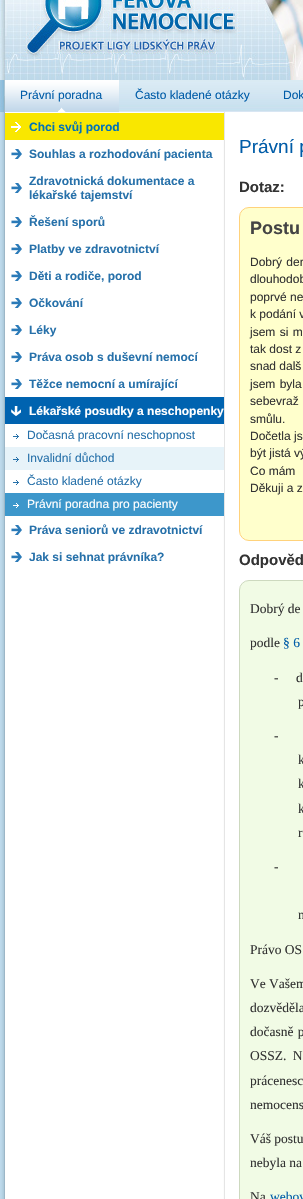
void draw(SkCanvas* canvas) {
    SkPaint paint;
    paint.setAntiAlias(true);
    auto spacedText = [&](const char* s, float x, float y, const SkFont& font, const SkPaint& ink, float letter, float word) {
        std::vector<SkGlyphID> glyphs(font.countText(s, strlen(s), SkTextEncoding::kUTF8));
        std::vector<float> xs(glyphs.size());
        font.textToGlyphs(s, strlen(s), SkTextEncoding::kUTF8, glyphs);
        font.getXPos(glyphs, xs, x);
        float extra = 0;
        for (size_t i = 0; i < glyphs.size(); i++) {
            xs[i] += extra;
            extra += letter + word * (glyphs[i] == font.unicharToGlyph(' '));
        }
        canvas->drawTextBlob(SkTextBlob::MakeFromPosHGlyphs(glyphs, xs, y, font), 0, 0, ink);
    };
    canvas->clear(0xFFFFFFFF);
    canvas->drawImageRect(SkImages::DeferredFromEncodedData(SkData::MakeFromFileName("img1.png")), SkRect::MakeXYWH(0, 112, 225, 1087), SkSamplingOptions());
    canvas->drawImageRect(SkImages::DeferredFromEncodedData(SkData::MakeFromFileName("img2.png")), SkRect::MakeXYWH(0, 0, 303, 80), SkSamplingOptions());
    canvas->drawImageRect(SkImages::DeferredFromEncodedData(SkData::MakeFromFileName("img3.png")), SkRect::MakeXYWH(26, 0, 208, 54), SkSamplingOptions());
    canvas->drawImageRect(SkImages::DeferredFromEncodedData(SkData::MakeFromFileName("img4.png")), SkRect::MakeXYWH(0, 80, 303, 32), SkSamplingOptions());
    canvas->drawImageRect(SkImages::DeferredFromEncodedData(SkData::MakeFromFileName("img5.png")), SkRect::MakeXYWH(5, 80, 114, 32), SkSamplingOptions());
    canvas->drawImageRect(SkImages::DeferredFromEncodedData(SkData::MakeFromFileName("img6.png")), SkRect::MakeXYWH(58, 107, 8, 5), SkSamplingOptions());
    SkFont font1(fontMgr->matchFamilyStyle("Liberation Sans", SkFontStyle::Normal()), 12);
    font1.setSubpixel(true);
    paint.setColor(0xFF005CA8);
    canvas->drawString("Právní poradna", 20, 99, font1, paint);
    canvas->drawString("Často kladené otázky", 135, 99, font1, paint);
    canvas->drawString("Dok", 283, 99, font1, paint);
    paint.setColor(0xFFF9E700);
    canvas->drawRect(SkRect::MakeXYWH(5, 113, 219, 27), paint);
    canvas->drawImageRect(SkImages::DeferredFromEncodedData(SkData::MakeFromFileName("img7.png")), SkRect::MakeXYWH(11, 122, 10, 10), SkSamplingOptions());
    SkFont font2(fontMgr->matchFamilyStyle("Liberation Sans", SkFontStyle::Bold()), 12);
    font2.setSubpixel(true);
    paint.setColor(0xFF0072B9);
    canvas->drawString("Chci svůj porod", 29, 131, font2, paint);
    canvas->drawImageRect(SkImages::DeferredFromEncodedData(SkData::MakeFromFileName("img8.png")), SkRect::MakeXYWH(11, 149, 11, 10), SkSamplingOptions());
    paint.setColor(0xFF2771AA);
    canvas->drawString("Souhlas a rozhodování pacienta", 29, 158, font2, paint);
    canvas->drawImageRect(SkImages::DeferredFromEncodedData(SkData::MakeFromFileName("img8.png")), SkRect::MakeXYWH(11, 183, 11, 10), SkSamplingOptions());
    canvas->drawString("Zdravotnická dokumentace a", 29, 185, font2, paint);
    canvas->drawString("lékařské tajemství", 29, 199, font2, paint);
    canvas->drawImageRect(SkImages::DeferredFromEncodedData(SkData::MakeFromFileName("img8.png")), SkRect::MakeXYWH(11, 217, 11, 10), SkSamplingOptions());
    canvas->drawString("Řešení sporů", 29, 226, font2, paint);
    canvas->drawImageRect(SkImages::DeferredFromEncodedData(SkData::MakeFromFileName("img8.png")), SkRect::MakeXYWH(11, 244, 11, 10), SkSamplingOptions());
    canvas->drawString("Platby ve zdravotnictví", 29, 253, font2, paint);
    canvas->drawImageRect(SkImages::DeferredFromEncodedData(SkData::MakeFromFileName("img8.png")), SkRect::MakeXYWH(11, 271, 11, 10), SkSamplingOptions());
    canvas->drawString("Děti a rodiče, porod", 29, 280, font2, paint);
    canvas->drawImageRect(SkImages::DeferredFromEncodedData(SkData::MakeFromFileName("img8.png")), SkRect::MakeXYWH(11, 298, 11, 10), SkSamplingOptions());
    canvas->drawString("Očkování", 29, 307, font2, paint);
    canvas->drawImageRect(SkImages::DeferredFromEncodedData(SkData::MakeFromFileName("img8.png")), SkRect::MakeXYWH(11, 325, 11, 10), SkSamplingOptions());
    canvas->drawString("Léky", 29, 334, font2, paint);
    canvas->drawImageRect(SkImages::DeferredFromEncodedData(SkData::MakeFromFileName("img8.png")), SkRect::MakeXYWH(11, 352, 11, 10), SkSamplingOptions());
    canvas->drawString("Práva osob s duševní nemocí", 29, 361, font2, paint);
    canvas->drawImageRect(SkImages::DeferredFromEncodedData(SkData::MakeFromFileName("img8.png")), SkRect::MakeXYWH(11, 379, 11, 10), SkSamplingOptions());
    canvas->drawString("Těžce nemocní a umírající", 29, 388, font2, paint);
    paint.setColor(0xFF0063B0);
    canvas->drawRect(SkRect::MakeXYWH(5, 397, 219, 27), paint);
    canvas->drawImageRect(SkImages::DeferredFromEncodedData(SkData::MakeFromFileName("img9.png")), SkRect::MakeXYWH(11, 406, 10, 10), SkSamplingOptions());
    paint.setColor(0xFFFFFFFF);
    canvas->drawString("Lékařské posudky a neschopenky", 29, 415, font2, paint);
    canvas->drawRect(SkRect::MakeXYWH(223, 424, 1, 23), paint);
    canvas->drawImageRect(SkImages::DeferredFromEncodedData(SkData::MakeFromFileName("img10.png")), SkRect::MakeXYWH(13, 434, 6, 5), SkSamplingOptions());
    paint.setColor(0xFF2771AA);
    canvas->drawString("Dočasná pracovní neschopnost", 27, 439, font1, paint);
    paint.setColor(0xFFE7F3F9);
    canvas->drawRect(SkRect::MakeXYWH(5, 447, 219, 23), paint);
    canvas->drawImageRect(SkImages::DeferredFromEncodedData(SkData::MakeFromFileName("img11.png")), SkRect::MakeXYWH(13, 457, 6, 5), SkSamplingOptions());
    paint.setColor(0xFF2771AA);
    canvas->drawString("Invalidní důchod", 27, 462, font1, paint);
    paint.setColor(0xFFFFFFFF);
    canvas->drawRect(SkRect::MakeXYWH(223, 470, 1, 23), paint);
    canvas->drawImageRect(SkImages::DeferredFromEncodedData(SkData::MakeFromFileName("img10.png")), SkRect::MakeXYWH(13, 480, 6, 5), SkSamplingOptions());
    paint.setColor(0xFF2771AA);
    canvas->drawString("Často kladené otázky", 27, 485, font1, paint);
    paint.setColor(0xFF3D97CB);
    canvas->drawRect(SkRect::MakeXYWH(5, 493, 219, 23), paint);
    canvas->drawImageRect(SkImages::DeferredFromEncodedData(SkData::MakeFromFileName("img12.png")), SkRect::MakeXYWH(13, 503, 6, 5), SkSamplingOptions());
    paint.setColor(0xFFFFFFFF);
    canvas->drawString("Právní poradna pro pacienty", 27, 508, font1, paint);
    canvas->drawImageRect(SkImages::DeferredFromEncodedData(SkData::MakeFromFileName("img8.png")), SkRect::MakeXYWH(11, 525, 11, 10), SkSamplingOptions());
    paint.setColor(0xFF2771AA);
    canvas->drawString("Práva seniorů ve zdravotnictví", 29, 534, font2, paint);
    canvas->drawImageRect(SkImages::DeferredFromEncodedData(SkData::MakeFromFileName("img8.png")), SkRect::MakeXYWH(11, 552, 11, 10), SkSamplingOptions());
    canvas->drawString("Jak si sehnat právníka?", 29, 561, font2, paint);
    SkFont font3(fontMgr->matchFamilyStyle("Liberation Sans", SkFontStyle::Normal()), 19);
    font3.setSubpixel(true);
    paint.setColor(0xFF005CA8);
    canvas->drawString("Právní p", 239, 153, font3, paint);
    SkFont font4(fontMgr->matchFamilyStyle("Liberation Sans", SkFontStyle::Bold()), 15);
    font4.setSubpixel(true);
    paint.setColor(0xFF333333);
    canvas->drawString("Dotaz:", 239, 192, font4, paint);
    paint.setColor(0xFFFFFFCC);
    canvas->drawRoundRect(SkRect::MakeXYWH(239.5f, 207.5f, 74, 333), 9.5f, 9.5f, paint);
    paint.setStyle(SkPaint::kStroke_Style);
    paint.setStrokeWidth(1);
    paint.setColor(0xFFFFD27B);
    canvas->drawRoundRect(SkRect::MakeXYWH(239.5f, 207.5f, 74, 333), 9.5f, 9.5f, paint);
    SkFont font5(fontMgr->matchFamilyStyle("Liberation Sans", SkFontStyle::Bold()), 18);
    font5.setSubpixel(true);
    paint.setStyle(SkPaint::kFill_Style);
    paint.setColor(0xFF444444);
    canvas->drawString("Postu", 250, 234, font5, paint);
    paint.setColor(0xFF333333);
    spacedText("Dobrý den", 250, 266, font1, paint, 0, 1);
    spacedText("dlouhodob", 250, 283, font1, paint, 0, 1);
    canvas->drawString("poprvé ne", 250, 301, font1, paint);
    canvas->drawString("k podání v", 250, 318, font1, paint);
    spacedText("jsem si m", 250, 336, font1, paint, 0, 1);
    canvas->drawString("tak dost z", 250, 353, font1, paint);
    canvas->drawString("snad dalš", 250, 370, font1, paint);
    spacedText("jsem byla", 250, 388, font1, paint, 0, 1);
    spacedText("sebevraž", 250, 405, font1, paint, 0, 1);
    canvas->drawString("smůlu.", 250, 423, font1, paint);
    canvas->drawString("Dočetla js", 250, 440, font1, paint);
    canvas->drawString("být jistá vý", 250, 457, font1, paint);
    canvas->drawString("Co mám", 250, 475, font1, paint);
    canvas->drawString("Děkuji a z", 250, 492, font1, paint);
    canvas->drawString("Odpověď", 239, 565, font4, paint);
    paint.setColor(0xFFF1FBE5);
    canvas->drawRoundRect(SkRect::MakeXYWH(239.5f, 580.5f, 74, 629), 9.5f, 9.5f, paint);
    paint.setStyle(SkPaint::kStroke_Style);
    paint.setColor(0xFFCDD9BF);
    canvas->drawRoundRect(SkRect::MakeXYWH(239.5f, 580.5f, 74, 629), 9.5f, 9.5f, paint);
    SkFont font6(fontMgr->matchFamilyStyle("Liberation Serif", SkFontStyle::Normal()), 13.5f);
    font6.setSubpixel(true);
    paint.setStyle(SkPaint::kFill_Style);
    paint.setColor(0xFF333333);
    canvas->drawString("Dobrý de", 250, 613, font6, paint);
    canvas->drawString("podle", 250, 647, font6, paint);
    paint.setColor(0xFF005CA8);
    canvas->drawString("§ 6", 283, 647, font6, paint);
    paint.setColor(0xFF333333);
    canvas->drawString("-", 274, 682, font6, paint);
    canvas->drawString("d", 296, 682, font6, paint);
    canvas->drawString("p", 298, 706, font6, paint);
    canvas->drawString("-", 274, 740, font6, paint);
    spacedText("k", 298, 764, font6, paint, 0, 2);
    spacedText("k", 298, 788, font6, paint, 0, 1);
    spacedText("k", 298, 813, font6, paint, 0, 2);
    canvas->drawString("r", 298, 837, font6, paint);
    canvas->drawString("-", 274, 871, font6, paint);
    canvas->drawString("n", 298, 919, font6, paint);
    canvas->drawString("Právo OS", 250, 954, font6, paint);
    canvas->drawString("Ve Vašem", 250, 988, font6, paint);
    canvas->drawString("dozvěděla", 250, 1012, font6, paint);
    spacedText("dočasně p", 250, 1036, font6, paint, 0, 1);
    spacedText("OSSZ. N", 250, 1060, font6, paint, 0, 3);
    spacedText("prácenesc", 250, 1085, font6, paint, 0, 6);
    canvas->drawString("nemocens", 250, 1109, font6, paint);
    canvas->drawString("Váš postu", 250, 1143, font6, paint);
    canvas->drawString("nebyla na", 250, 1167, font6, paint);
    canvas->drawString("Na", 250, 1201, font6, paint);
    paint.setColor(0xFF005CA8);
    spacedText("webov", 270, 1201, font6, paint, 0, 1);
}
